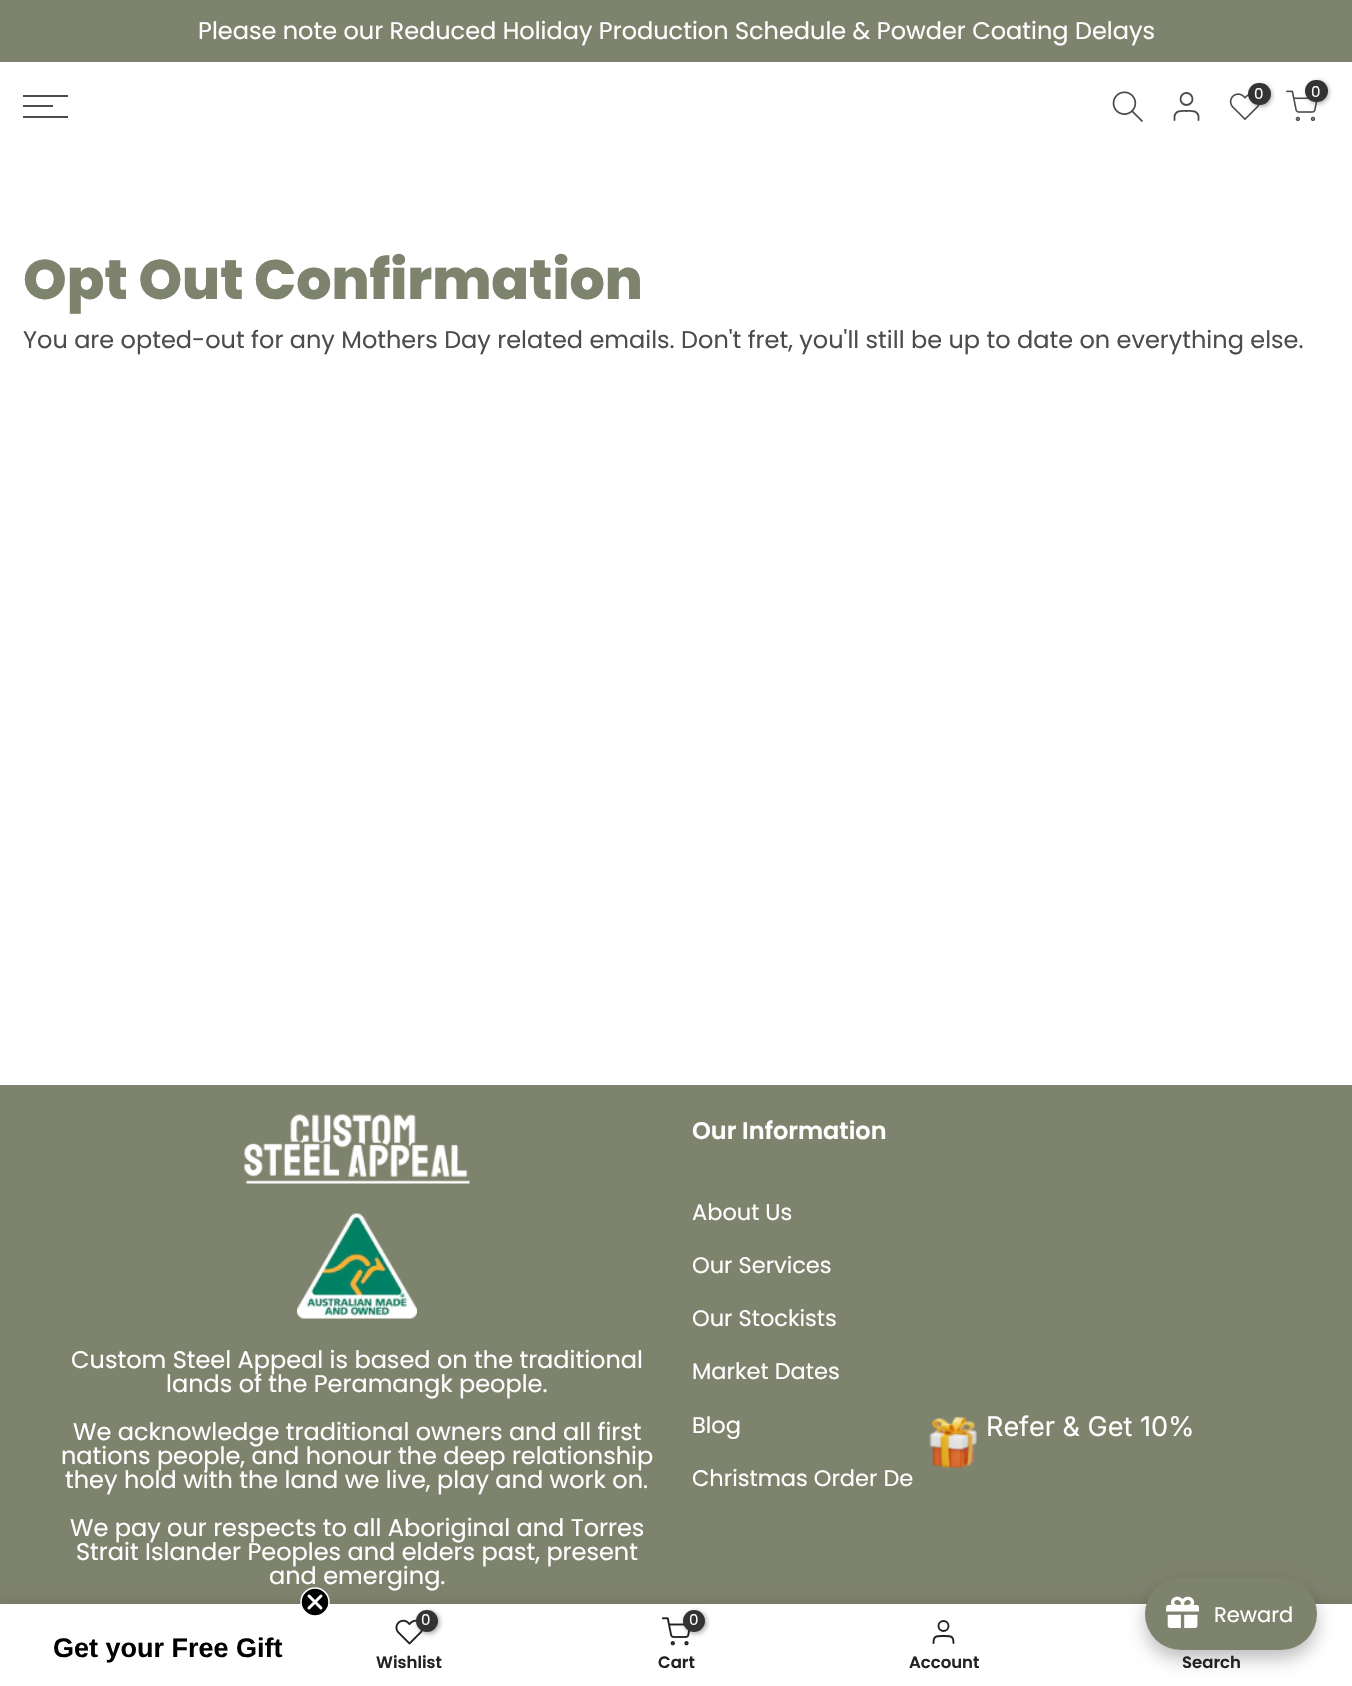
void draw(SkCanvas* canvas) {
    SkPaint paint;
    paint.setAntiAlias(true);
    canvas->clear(0xFFFFFFFF);
    paint.setColor(0xFF7E836D);
    canvas->drawRect(SkRect::MakeXYWH(0, 0, 1352, 62), paint);
    SkFont font1(fontMgr->matchFamilyStyle("Poppins", SkFontStyle::Normal()), 24);
    font1.setSubpixel(true);
    paint.setColor(0xFFFFFFFF);
    canvas->drawString("Please note our Reduced Holiday Production Schedule & Powder Coating Delays", 198, 39, font1, paint);
    canvas->drawImageRect(SkImages::DeferredFromEncodedData(SkData::MakeFromFileName("img1.png")), SkRect::MakeXYWH(1112, 91, 31, 31), SkSamplingOptions());
    paint.setStyle(SkPaint::kStroke_Style);
    paint.setStrokeWidth(1.8f);
    paint.setColor(0xFF4A4C4E);
    canvas->drawCircle(1186.5f, 99, 6, paint);
    paint.setStrokeCap(SkPaint::kRound_Cap);
    paint.setStrokeJoin(SkPaint::kRound_Join);
    canvas->drawPath(SkPathBuilder().moveTo(1198.5f, 120).lineTo(1198.5f, 116).cubicTo(1197, 110, 1191, 111, 1186.5f, 111).cubicTo(1182, 111, 1176, 110, 1174.5f, 116).lineTo(1174.5f, 120).detach(), paint);
    canvas->drawImageRect(SkImages::DeferredFromEncodedData(SkData::MakeFromFileName("img2.png")), SkRect::MakeXYWH(1229, 93, 31, 27), SkSamplingOptions());
    paint.setStyle(SkPaint::kFill_Style);
    paint.setColor(0x4D000000);
    paint.setMaskFilter(SkMaskFilter::MakeBlur(kNormal_SkBlurStyle, 2));
    canvas->drawRoundRect(SkRect::MakeXYWH(1250, 84, 22, 23), 11, 11, paint);
    paint.setMaskFilter(nullptr);
    paint.setColor(0xFF333333);
    canvas->drawRoundRect(SkRect::MakeXYWH(1248, 83, 23, 22), 11, 11, paint);
    SkFont font2(fontMgr->matchFamilyStyle("Poppins", SkFontStyle::Normal()), 15);
    font2.setSubpixel(true);
    paint.setColor(0xFFFFFFFF);
    canvas->drawString("0", 1254, 99, font2, paint);
    canvas->drawImageRect(SkImages::DeferredFromEncodedData(SkData::MakeFromFileName("img3.png")), SkRect::MakeXYWH(1286, 90, 32, 32), SkSamplingOptions());
    paint.setColor(0x4D000000);
    paint.setMaskFilter(SkMaskFilter::MakeBlur(kNormal_SkBlurStyle, 2));
    canvas->drawRoundRect(SkRect::MakeXYWH(1307, 81, 22, 23), 11, 11, paint);
    paint.setMaskFilter(nullptr);
    paint.setColor(0xFF333333);
    canvas->drawRoundRect(SkRect::MakeXYWH(1305, 80, 23, 22), 11, 11, paint);
    paint.setColor(0xFFFFFFFF);
    canvas->drawString("0", 1311, 97, font2, paint);
    paint.setColor(0xFF4A4C4E);
    canvas->drawRect(SkRect::MakeXYWH(23, 95, 45, 2), paint);
    canvas->drawRect(SkRect::MakeXYWH(23, 105, 30, 2), paint);
    canvas->drawRect(SkRect::MakeXYWH(23, 116, 45, 2), paint);
    SkFont font3(fontMgr->matchFamilyStyle("Poppins", SkFontStyle(800, SkFontStyle::kNormal_Width, SkFontStyle::kUpright_Slant)), 55.5f);
    font3.setSubpixel(true);
    paint.setColor(0xFF7E836D);
    canvas->drawString("Opt Out Confirmation", 23, 299, font3, paint);
    paint.setColor(0xFF4A4C4E);
    canvas->drawString("You are opted-out for any Mothers Day related emails. Don't fret, you'll still be up to date on everything else.", 23, 348, font1, paint);
    paint.setColor(0xFF7E836D);
    canvas->drawRect(SkRect::MakeXYWH(0, 1085, 1352, 519), paint);
    canvas->drawImageRect(SkImages::DeferredFromEncodedData(SkData::MakeFromFileName("img4.png")), SkRect::MakeXYWH(244, 1114, 226, 70), SkSamplingOptions());
    canvas->drawImageRect(SkImages::DeferredFromEncodedData(SkData::MakeFromFileName("img5.png")), SkRect::MakeXYWH(297, 1213, 120, 106), SkSamplingOptions());
    paint.setColor(0xFFFFFFFF);
    canvas->drawString("Custom Steel Appeal is based on the traditional", 71, 1368, font1, paint);
    canvas->drawString("lands of the Peramangk people.", 166, 1392, font1, paint);
    canvas->drawString("We acknowledge traditional owners and all first", 73, 1440, font1, paint);
    canvas->drawString("nations people, and honour the deep relationship", 61, 1464, font1, paint);
    canvas->drawString("they hold with the land we live, play and work on.", 65, 1488, font1, paint);
    canvas->drawString("We pay our respects to all Aboriginal and Torres", 70, 1536, font1, paint);
    canvas->drawString("Strait Islander Peoples and elders past, present", 76, 1560, font1, paint);
    canvas->drawString("and emerging.", 269, 1584, font1, paint);
    SkFont font4(fontMgr->matchFamilyStyle("Poppins", SkFontStyle(600, SkFontStyle::kNormal_Width, SkFontStyle::kUpright_Slant)), 24);
    font4.setSubpixel(true);
    canvas->drawString("Our Information", 692, 1139, font4, paint);
    SkFont font5(fontMgr->matchFamilyStyle("Poppins", SkFontStyle::Normal()), 22.5f);
    font5.setSubpixel(true);
    canvas->drawString("About Us", 692, 1220, font5, paint);
    canvas->drawString("Our Services", 692, 1273, font5, paint);
    canvas->drawString("Our Stockists", 692, 1326, font5, paint);
    canvas->drawString("Market Dates", 692, 1379, font5, paint);
    canvas->drawString("Blog", 692, 1433, font5, paint);
    canvas->drawString("Christmas Order De", 692, 1486, font5, paint);
    canvas->drawImageRect(SkImages::DeferredFromEncodedData(SkData::MakeFromFileName("img6.png")), SkRect::MakeXYWH(929, 1416, 48, 53), SkSamplingOptions());
    SkFont font6(fontMgr->matchFamilyStyle("Inter", SkFontStyle::Normal()), 27);
    font6.setSubpixel(true);
    canvas->drawString("Refer & Get 10%", 986, 1436, font6, paint);
    paint.setColor(0x1F000000);
    paint.setMaskFilter(SkMaskFilter::MakeBlur(kNormal_SkBlurStyle, 7));
    canvas->drawRect(SkRect::MakeXYWH(0, 1604, 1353, 82), paint);
    paint.setMaskFilter(nullptr);
    paint.setColor(0xFFFFFFFF);
    canvas->drawRect(SkRect::MakeXYWH(0, 1604, 1352, 82), paint);
    paint.setColor(0x40000000);
    paint.setMaskFilter(SkMaskFilter::MakeBlur(kNormal_SkBlurStyle, 9));
    canvas->drawRoundRect(SkRect::MakeXYWH(1145, 1587, 172, 72), 36, 36, paint);
    paint.setMaskFilter(nullptr);
    paint.setColor(0xFF7E836D);
    canvas->drawRoundRect(SkRect::MakeXYWH(1145, 1578, 172, 72), 36, 36, paint);
    canvas->drawImageRect(SkImages::DeferredFromEncodedData(SkData::MakeFromFileName("img7.png")), SkRect::MakeXYWH(1166, 1596, 33, 32), SkSamplingOptions());
    SkFont font7(fontMgr->matchFamilyStyle("Poppins", SkFontStyle::Normal()), 21);
    font7.setSubpixel(true);
    paint.setColor(0xFFFFFFFF);
    canvas->drawString("Reward", 1214, 1622, font7, paint);
    paint.setColor(0xFF000000);
    canvas->drawCircle(315, 1602, 14, paint);
    paint.setStyle(SkPaint::kStroke_Style);
    paint.setStrokeWidth(1.5f);
    paint.setStrokeCap(SkPaint::kButt_Cap);
    paint.setStrokeJoin(SkPaint::kMiter_Join);
    paint.setColor(0xFFFFFFFF);
    canvas->drawCircle(315, 1602, 14, paint);
    paint.setStrokeWidth(3);
    paint.setStrokeCap(SkPaint::kRound_Cap);
    paint.setStrokeJoin(SkPaint::kRound_Join);
    canvas->drawPath(SkPathBuilder().moveTo(309, 1596).lineTo(321, 1608).moveTo(309, 1608).lineTo(321, 1596).close().detach(), paint);
    SkFont font8(fontMgr->matchFamilyStyle("Liberation Sans", SkFontStyle::Bold()), 27);
    font8.setSubpixel(true);
    paint.setStyle(SkPaint::kFill_Style);
    paint.setColor(0xFF000000);
    canvas->drawString("Get your Free Gift", 53, 1657, font8, paint);
    canvas->drawImageRect(SkImages::DeferredFromEncodedData(SkData::MakeFromFileName("img8.png")), SkRect::MakeXYWH(395, 1619, 28, 26), SkSamplingOptions());
    paint.setColor(0x4D000000);
    paint.setMaskFilter(SkMaskFilter::MakeBlur(kNormal_SkBlurStyle, 2));
    canvas->drawRoundRect(SkRect::MakeXYWH(417, 1611, 23, 23), 11.5f, 11.5f, paint);
    paint.setMaskFilter(nullptr);
    paint.setColor(0xFF333333);
    canvas->drawCircle(427, 1621, 11, paint);
    paint.setColor(0xFFFFFFFF);
    canvas->drawString("0", 421, 1625, font2, paint);
    SkFont font9(fontMgr->matchFamilyStyle("Poppins", SkFontStyle(600, SkFontStyle::kNormal_Width, SkFontStyle::kUpright_Slant)), 16.5f);
    font9.setSubpixel(true);
    paint.setColor(0xFF222222);
    canvas->drawString("Wishlist", 376, 1668, font9, paint);
    canvas->drawImageRect(SkImages::DeferredFromEncodedData(SkData::MakeFromFileName("img9.png")), SkRect::MakeXYWH(662, 1617, 28, 29), SkSamplingOptions());
    paint.setColor(0x4D000000);
    paint.setMaskFilter(SkMaskFilter::MakeBlur(kNormal_SkBlurStyle, 2));
    canvas->drawRoundRect(SkRect::MakeXYWH(684, 1611, 23, 23), 11.5f, 11.5f, paint);
    paint.setMaskFilter(nullptr);
    paint.setColor(0xFF333333);
    canvas->drawCircle(694, 1621, 11, paint);
    paint.setColor(0xFFFFFFFF);
    canvas->drawString("0", 689, 1625, font2, paint);
    paint.setColor(0xFF222222);
    canvas->drawString("Cart", 658, 1668, font9, paint);
    paint.setStyle(SkPaint::kStroke_Style);
    paint.setStrokeWidth(1.9f);
    paint.setStrokeCap(SkPaint::kButt_Cap);
    paint.setStrokeJoin(SkPaint::kMiter_Join);
    canvas->drawCircle(943.5f, 1626, 5, paint);
    paint.setStrokeCap(SkPaint::kRound_Cap);
    paint.setStrokeJoin(SkPaint::kRound_Join);
    canvas->drawPath(SkPathBuilder().moveTo(953.5f, 1643).cubicTo(953.5f, 1635.5f, 950.5f, 1636, 943.5f, 1636).cubicTo(936.5f, 1636, 933.5f, 1635.5f, 933.5f, 1643).detach(), paint);
    paint.setStyle(SkPaint::kFill_Style);
    canvas->drawString("Account", 909, 1668, font9, paint);
    canvas->drawString("Search", 1182, 1668, font9, paint);
}
